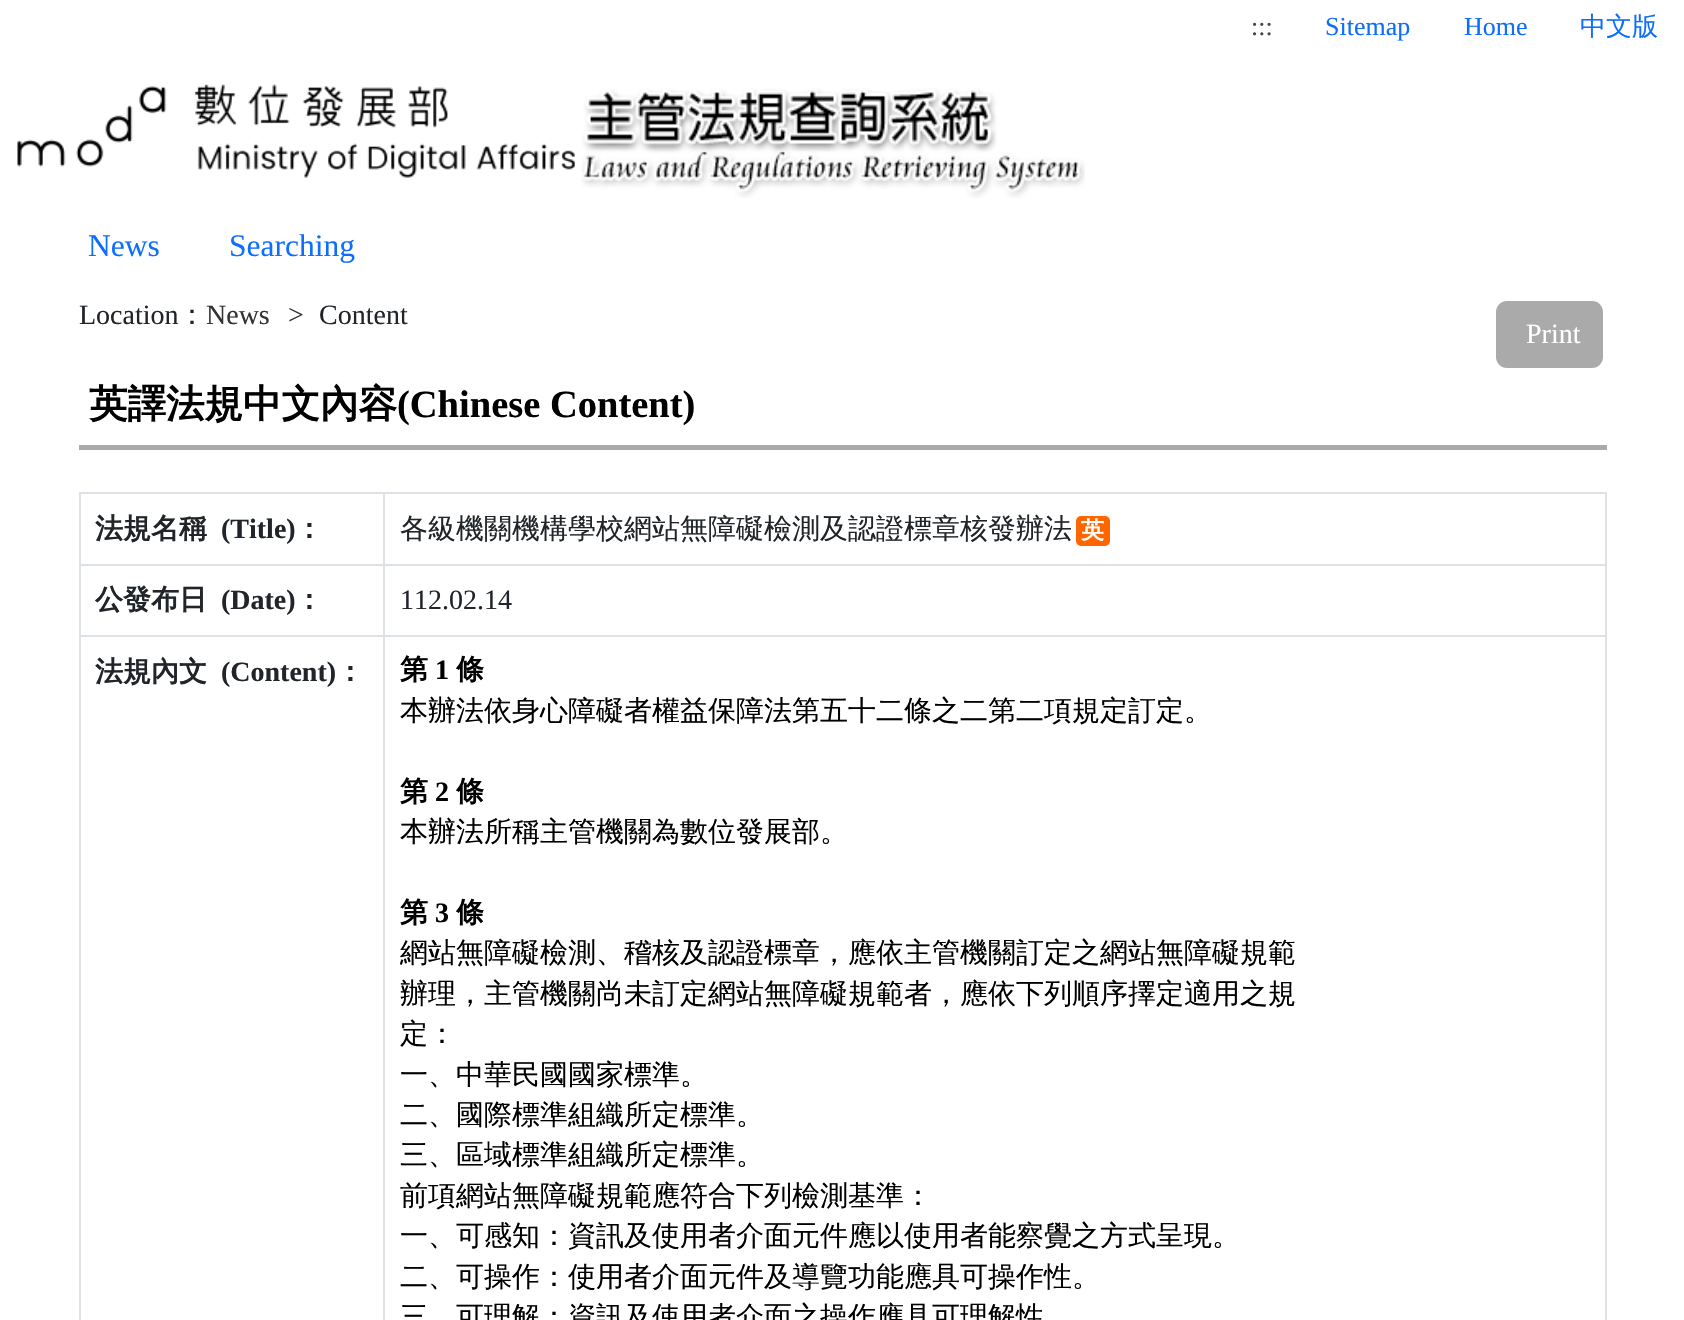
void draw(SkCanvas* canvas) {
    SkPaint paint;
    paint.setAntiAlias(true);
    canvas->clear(0xFFFFFFFF);
    SkFont font1(fontMgr->matchFamilyStyle("Liberation Serif", SkFontStyle::Normal()), 26);
    font1.setSubpixel(true);
    paint.setColor(0xFF444444);
    canvas->drawString(":::", 1251, 35, font1, paint);
    paint.setColor(0xFF0D6EFD);
    canvas->drawString("Sitemap", 1325, 35, font1, paint);
    canvas->drawString("Home", 1464, 35, font1, paint);
    SkFont font2(fontMgr->matchFamilyStyle("WenQuanYi Zen Hei", SkFontStyle(500, SkFontStyle::kNormal_Width, SkFontStyle::kUpright_Slant)), 26);
    font2.setSubpixel(true);
    canvas->drawString("中文版", 1580, 35, font2, paint);
    canvas->drawImageRect(SkImages::DeferredFromEncodedData(SkData::MakeFromFileName("img1.png")), SkRect::MakeXYWH(17, 84, 558, 94), SkSamplingOptions());
    canvas->drawImageRect(SkImages::DeferredFromEncodedData(SkData::MakeFromFileName("img2.png")), SkRect::MakeXYWH(581, 88, 504, 110), SkSamplingOptions());
    SkFont font3(fontMgr->matchFamilyStyle("Liberation Serif", SkFontStyle::Normal()), 31.5f);
    font3.setSubpixel(true);
    canvas->drawString("News", 88, 256, font3, paint);
    canvas->drawString("Searching", 229, 256, font3, paint);
    SkFont font4(fontMgr->matchFamilyStyle("Liberation Serif", SkFontStyle::Normal()), 28);
    font4.setSubpixel(true);
    paint.setColor(0xFF212529);
    canvas->drawString("Location", 79, 324, font4, paint);
    SkFont font5(fontMgr->matchFamilyStyle("WenQuanYi Zen Hei", SkFontStyle(500, SkFontStyle::kNormal_Width, SkFontStyle::kUpright_Slant)), 28);
    font5.setSubpixel(true);
    canvas->drawString("：", 178, 324, font5, paint);
    paint.setColor(0xFF333333);
    canvas->drawString("News", 206, 324, font4, paint);
    canvas->drawString(">", 288, 324, font4, paint);
    paint.setColor(0xFF212529);
    canvas->drawString("Content", 319, 324, font4, paint);
    paint.setColor(0xFFAAAAAA);
    canvas->drawRoundRect(SkRect::MakeXYWH(1497, 302, 105, 65), 10, 10, paint);
    paint.setStyle(SkPaint::kStroke_Style);
    paint.setStrokeWidth(2);
    canvas->drawRoundRect(SkRect::MakeXYWH(1497, 302, 105, 65), 10, 10, paint);
    paint.setStyle(SkPaint::kFill_Style);
    paint.setColor(0xFFFFFFFF);
    canvas->drawString("Print", 1526, 343, font4, paint);
    paint.setColor(0xFFAAAAAA);
    canvas->drawRect(SkRect::MakeXYWH(79, 445, 1528, 5), paint);
    SkFont font6(fontMgr->matchFamilyStyle("WenQuanYi Zen Hei", SkFontStyle::Bold()), 38.5f);
    font6.setSubpixel(true);
    paint.setColor(0xFF000000);
    canvas->drawString("英譯法規中文內容", 89, 417, font6, paint);
    SkFont font7(fontMgr->matchFamilyStyle("Liberation Serif", SkFontStyle::Bold()), 38.5f);
    font7.setSubpixel(true);
    canvas->drawString("(Chinese Content)", 397, 417, font7, paint);
    paint.setColor(0xFFDEE2E6);
    canvas->drawRect(SkRect::MakeXYWH(79, 492, 1528, 2), paint);
    SkFont font8(fontMgr->matchFamilyStyle("WenQuanYi Zen Hei", SkFontStyle::Bold()), 28);
    font8.setSubpixel(true);
    paint.setColor(0xFF212529);
    canvas->drawString("法規名稱", 95, 538, font8, paint);
    SkFont font9(fontMgr->matchFamilyStyle("Liberation Serif", SkFontStyle::Bold()), 28);
    font9.setSubpixel(true);
    canvas->drawString("(Title)", 221, 538, font9, paint);
    canvas->drawString("：", 295, 538, font8, paint);
    canvas->drawString("各級機關機構學校網站無障礙檢測及認證標章核發辦法", 400, 538, font5, paint);
    paint.setColor(0xFFFF6600);
    canvas->drawRoundRect(SkRect::MakeXYWH(1076, 516, 34, 30), 5, 5, paint);
    SkFont font10(fontMgr->matchFamilyStyle("WenQuanYi Zen Hei", SkFontStyle::Bold()), 23);
    font10.setSubpixel(true);
    paint.setColor(0xFFFFFFFF);
    canvas->drawString("英", 1081, 538, font10, paint);
    paint.setColor(0xFFDEE2E6);
    canvas->drawRect(SkRect::MakeXYWH(79, 564, 1528, 2), paint);
    paint.setColor(0xFF212529);
    canvas->drawString("公發布日", 95, 609, font8, paint);
    canvas->drawString("(Date)", 221, 609, font9, paint);
    canvas->drawString("：", 295, 609, font8, paint);
    canvas->drawString("112.02.14", 400, 609, font4, paint);
    paint.setColor(0xFFDEE2E6);
    canvas->drawRect(SkRect::MakeXYWH(79, 635, 1528, 2), paint);
    canvas->drawRect(SkRect::MakeXYWH(79, 492, 2, 828), paint);
    paint.setColor(0xFF212529);
    canvas->drawString("法規內文", 95, 681, font8, paint);
    canvas->drawString("(Content)", 221, 681, font9, paint);
    canvas->drawString("：", 336, 681, font8, paint);
    paint.setColor(0xFFDEE2E6);
    canvas->drawRect(SkRect::MakeXYWH(1605, 492, 2, 828), paint);
    canvas->drawRect(SkRect::MakeXYWH(383, 492, 2, 828), paint);
    paint.setColor(0xFF000000);
    canvas->drawString("第", 400, 679, font8, paint);
    canvas->drawString("1", 435, 679, font9, paint);
    canvas->drawString("條", 456, 679, font8, paint);
    canvas->drawString("本辦法依身心障礙者權益保障法第五十二條之二第二項規定訂定。", 400, 720, font5, paint);
    canvas->drawString("第", 400, 801, font8, paint);
    canvas->drawString("2", 435, 801, font9, paint);
    canvas->drawString("條", 456, 801, font8, paint);
    canvas->drawString("本辦法所稱主管機關為數位發展部。", 400, 841, font5, paint);
    canvas->drawString("第", 400, 922, font8, paint);
    canvas->drawString("3", 435, 922, font9, paint);
    canvas->drawString("條", 456, 922, font8, paint);
    canvas->drawString("網站無障礙檢測、稽核及認證標章，應依主管機關訂定之網站無障礙規範", 400, 962, font5, paint);
    canvas->drawString("辦理，主管機關尚未訂定網站無障礙規範者，應依下列順序擇定適用之規", 400, 1003, font5, paint);
    canvas->drawString("定：", 400, 1043, font5, paint);
    canvas->drawString("一、中華民國國家標準。", 400, 1084, font5, paint);
    canvas->drawString("二、國際標準組織所定標準。", 400, 1124, font5, paint);
    canvas->drawString("三、區域標準組織所定標準。", 400, 1164, font5, paint);
    canvas->drawString("前項網站無障礙規範應符合下列檢測基準：", 400, 1205, font5, paint);
    canvas->drawString("一、可感知：資訊及使用者介面元件應以使用者能察覺之方式呈現。", 400, 1245, font5, paint);
    canvas->drawString("二、可操作：使用者介面元件及導覽功能應具可操作性。", 400, 1286, font5, paint);
    canvas->drawString("三、可理解：資訊及使用者介面之操作應具可理解性", 400, 1326, font5, paint);
}
